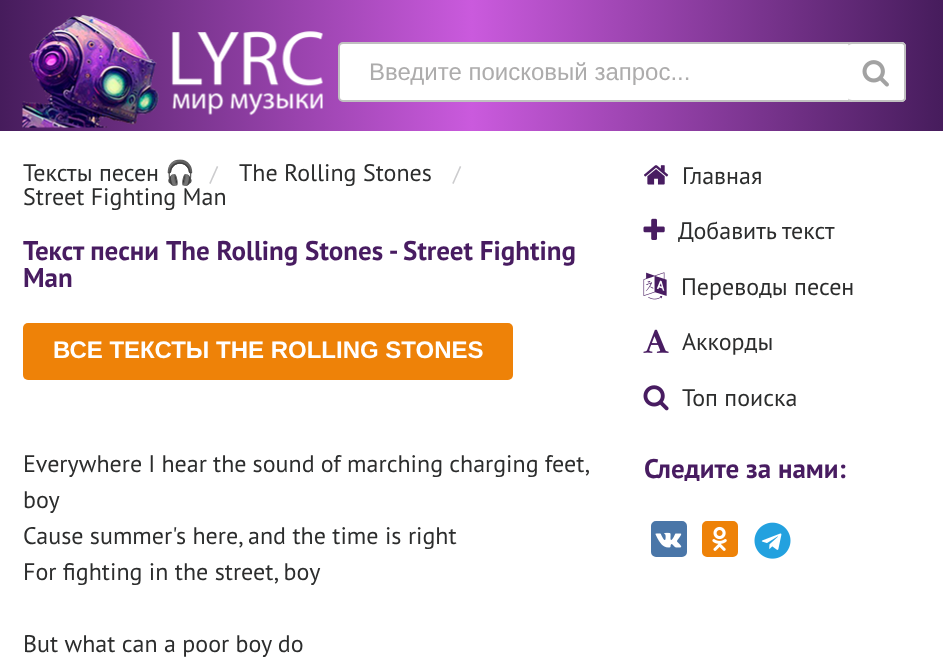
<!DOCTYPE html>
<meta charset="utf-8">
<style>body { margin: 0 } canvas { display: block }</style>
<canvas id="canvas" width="943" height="671"></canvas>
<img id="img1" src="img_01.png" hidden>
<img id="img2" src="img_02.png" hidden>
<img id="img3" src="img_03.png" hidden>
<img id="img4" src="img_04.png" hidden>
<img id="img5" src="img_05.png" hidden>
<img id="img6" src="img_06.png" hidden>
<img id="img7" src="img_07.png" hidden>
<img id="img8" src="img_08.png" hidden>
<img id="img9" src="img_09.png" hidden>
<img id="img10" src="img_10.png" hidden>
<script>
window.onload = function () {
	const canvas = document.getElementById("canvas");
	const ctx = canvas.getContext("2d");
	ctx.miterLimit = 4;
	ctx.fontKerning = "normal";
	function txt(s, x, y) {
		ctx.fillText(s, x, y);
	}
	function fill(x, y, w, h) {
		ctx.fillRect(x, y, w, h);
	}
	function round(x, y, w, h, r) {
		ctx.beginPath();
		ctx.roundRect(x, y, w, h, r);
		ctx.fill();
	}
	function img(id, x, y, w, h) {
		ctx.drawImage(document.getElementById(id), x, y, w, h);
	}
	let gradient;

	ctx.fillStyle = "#FFFFFF";
	fill(0, 0, 943, 671);
	gradient = ctx.createLinearGradient(0, 65, 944, 65);
	gradient.addColorStop(0, "#461C5C");
	gradient.addColorStop(0.5, "#CA5ADD");
	gradient.addColorStop(1, "#461C5C");
	ctx.fillStyle = gradient;
	fill(0, 0, 943, 131);
	img("img1", 22, 15, 301, 113);
	ctx.fillStyle = "#FFFFFF";
	ctx.beginPath();
	ctx.roundRect(339, 43, 566, 58, 4);
	ctx.fill();
	ctx.strokeStyle = "#C0C0C0";
	ctx.lineWidth = 2;
	ctx.stroke();
	round(848, 42, 58, 60, 5);
	ctx.fillStyle = "#C0C0C0";
	ctx.beginPath();
	ctx.moveTo(852, 42);
	ctx.lineTo(902, 42);
	ctx.bezierCurveTo(904, 42, 906, 44, 906, 46);
	ctx.lineTo(906, 98);
	ctx.bezierCurveTo(906, 100, 904, 102, 902, 102);
	ctx.lineTo(852, 102);
	ctx.bezierCurveTo(850, 102, 848, 100, 848, 98);
	ctx.lineTo(848, 46);
	ctx.bezierCurveTo(848, 44, 850, 42, 852, 42);
	ctx.closePath();
	ctx.moveTo(852, 44);
	ctx.lineTo(902, 44);
	ctx.bezierCurveTo(903, 44, 904, 45, 904, 46);
	ctx.lineTo(904, 98);
	ctx.bezierCurveTo(904, 99, 903, 100, 902, 100);
	ctx.lineTo(852, 100);
	ctx.bezierCurveTo(850, 100, 848, 99, 848, 98);
	ctx.lineTo(848, 46);
	ctx.bezierCurveTo(848, 45, 850, 44, 852, 44);
	ctx.closePath();
	ctx.fill("evenodd");
	img("img2", 862, 60, 27, 27);
	ctx.fillStyle = "#EE8208";
	round(23, 323, 490, 57, 5);
	img("img3", 644, 165, 25, 20);
	img("img4", 643, 218, 22, 22);
	img("img5", 643, 272, 24, 28);
	img("img6", 643, 329, 26, 24);
	img("img7", 643, 385, 26, 26);
	ctx.fillStyle = "#4A76A8";
	ctx.beginPath();
	ctx.roundRect(652, 522, 34, 34, 4);
	ctx.fill();
	ctx.strokeStyle = "#4A76A8";
	ctx.stroke();
	img("img8", 655, 532, 27, 16);
	ctx.fillStyle = "#EE8208";
	ctx.beginPath();
	ctx.roundRect(703, 522, 34, 34, 4);
	ctx.fill();
	ctx.strokeStyle = "#EE8208";
	ctx.stroke();
	img("img9", 712, 526, 15, 25);
	img("img10", 754, 522, 37, 37);
	ctx.font = "24px Liberation Sans";
	ctx.fillStyle = "#ADACAC";
	txt("Введите поисковый запрос...", 369, 80);
	ctx.font = "24px PT Sans";
	ctx.fillStyle = "#2C2D2D";
	txt("Тексты песен", 23, 181);
	ctx.font = "24px Noto Color Emoji";
	txt("🎧", 165, 181);
	ctx.font = "21px PT Sans";
	ctx.fillStyle = "#CCCCCE";
	txt("/", 210, 181);
	ctx.font = "24px PT Sans";
	ctx.fillStyle = "#2C2D2D";
	txt("The Rolling Stones", 239, 181);
	ctx.font = "21px PT Sans";
	ctx.fillStyle = "#CCCCCE";
	txt("/", 453, 181);
	ctx.font = "24px PT Sans";
	ctx.fillStyle = "#2C2D2D";
	txt("Street Fighting Man", 23, 205);
	ctx.font = "bold 27px PT Sans";
	ctx.fillStyle = "#481C61";
	txt("Текст песни The Rolling Stones - Street Fighting", 23, 260);
	txt("Man", 23, 287);
	ctx.font = "bold 24px Liberation Sans";
	ctx.fillStyle = "#FFFFFF";
	txt("ВСЕ ТЕКСТЫ THE ROLLING STONES", 53, 358);
	ctx.wordSpacing = "-0.25px";
	ctx.font = "24px PT Sans";
	ctx.fillStyle = "#2C2D2D";
	txt("Everywhere I hear the sound of marching charging feet,", 23, 472);
	ctx.wordSpacing = "0px";
	txt("boy", 23, 508);
	txt("Cause summer's here, and the time is right", 23, 544);
	txt("For fighting in the street, boy", 23, 580);
	txt("But what can a poor boy do", 23, 652);
	txt("Главная", 682, 184);
	txt("Добавить текст", 678, 239);
	txt("Переводы песен", 681, 295);
	txt("Аккорды", 682, 350);
	txt("Топ поиска", 682, 406);
	ctx.font = "bold 27px PT Sans";
	ctx.fillStyle = "#481C61";
	txt("Следите за нами:", 644, 478);
};
</script>
